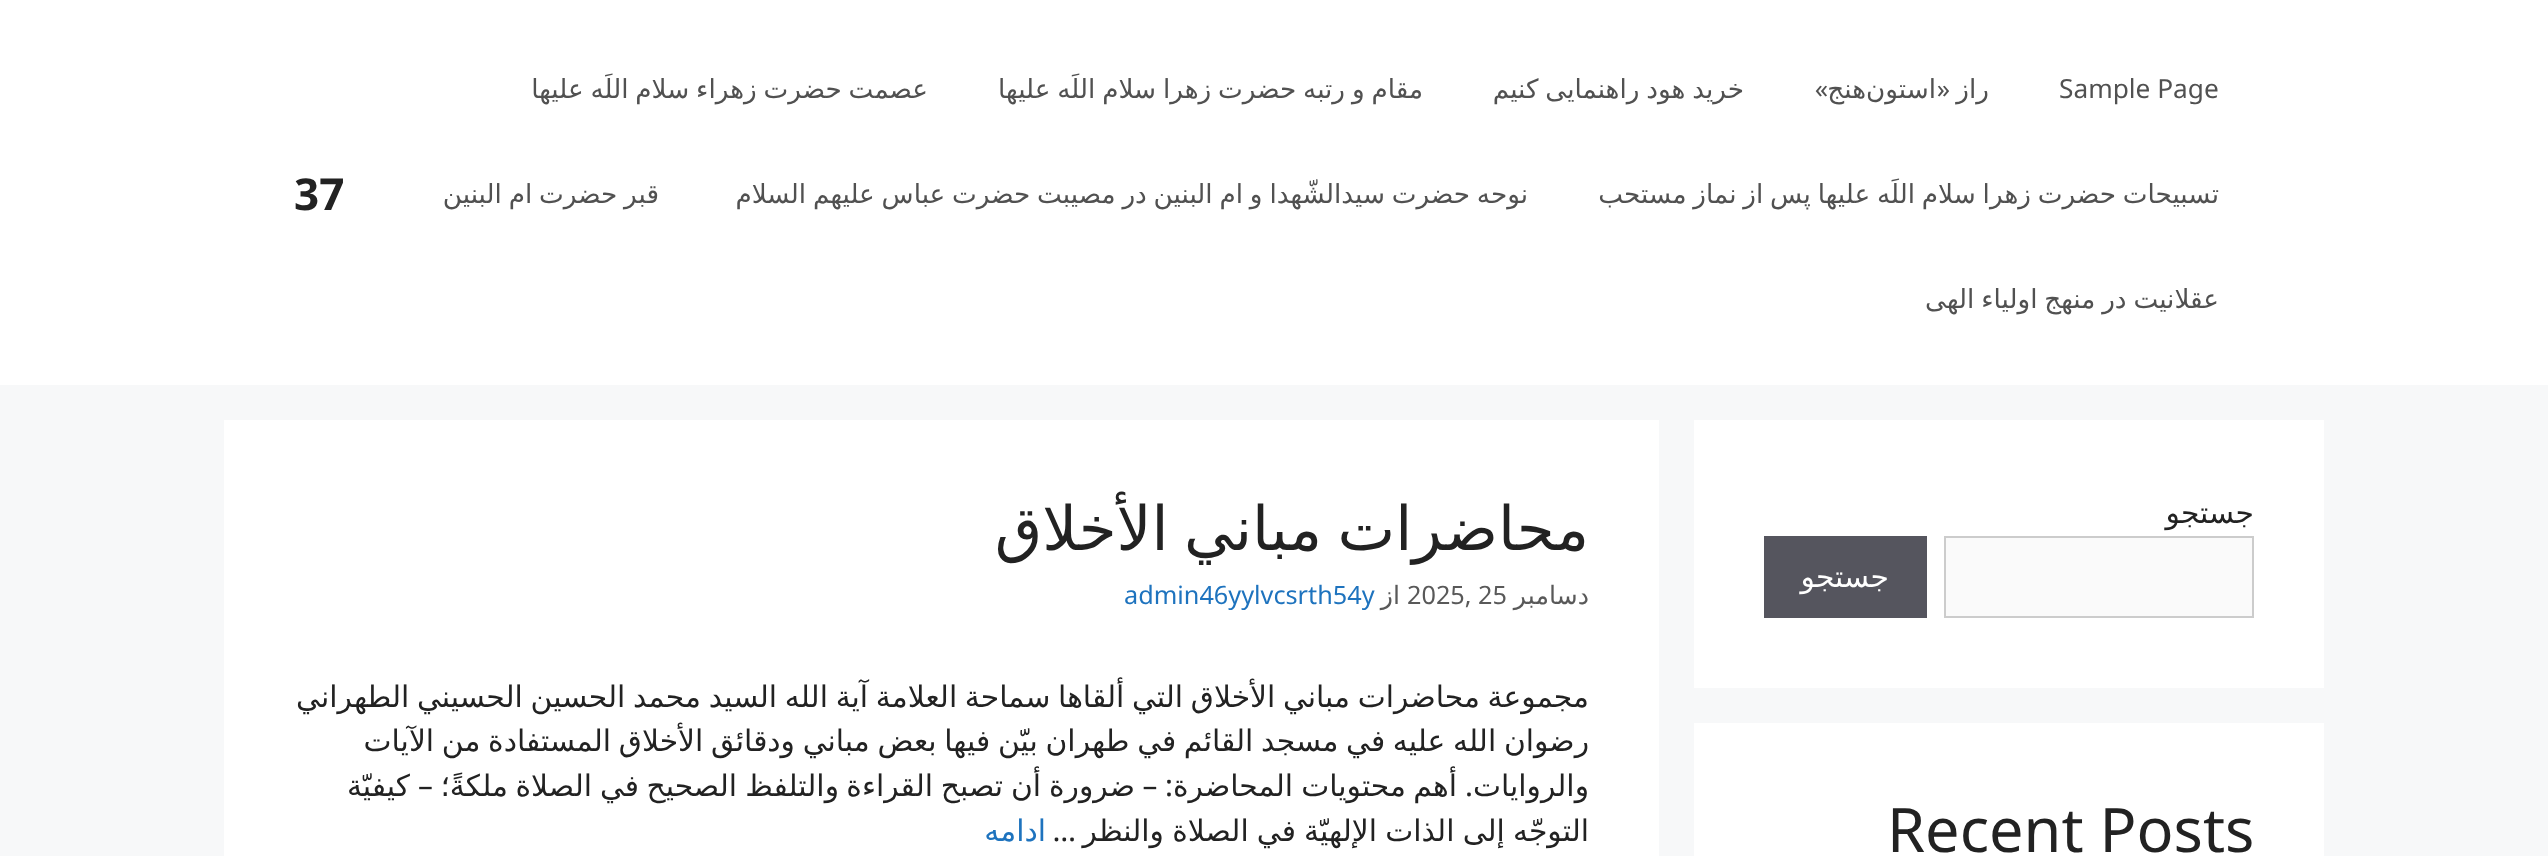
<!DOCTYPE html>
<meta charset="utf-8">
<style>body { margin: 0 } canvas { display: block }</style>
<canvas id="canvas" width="2548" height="856"></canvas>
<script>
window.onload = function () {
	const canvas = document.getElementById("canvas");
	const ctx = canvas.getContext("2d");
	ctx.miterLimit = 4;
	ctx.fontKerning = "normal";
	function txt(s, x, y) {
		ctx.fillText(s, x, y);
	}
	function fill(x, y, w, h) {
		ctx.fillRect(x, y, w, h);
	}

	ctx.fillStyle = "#F7F8F9";
	fill(0, 0, 2548, 856);
	ctx.fillStyle = "#FFFFFF";
	fill(0, 0, 2548, 385);
	fill(1694, 420, 630, 268);
	ctx.fillStyle = "#FAFAFA";
	ctx.beginPath();
	ctx.rect(1945, 537, 308, 80);
	ctx.fill();
	ctx.strokeStyle = "#CCCCCC";
	ctx.lineWidth = 2;
	ctx.stroke();
	ctx.fillStyle = "#55555E";
	fill(1764, 536, 163, 82);
	ctx.fillStyle = "#FFFFFF";
	fill(1694, 723, 630, 133);
	fill(224, 420, 1435, 436);
	ctx.font = "26.25px Noto Sans";
	ctx.fillStyle = "#515151";
	txt("Sample Page", 2059, 98);
	ctx.direction = "rtl";
	ctx.font = "26.25px DejaVu Sans";
	txt("راز", 1989, 98);
	ctx.font = "26.25px Noto Sans";
	txt("«", 1950, 98);
	ctx.font = "26.25px DejaVu Sans";
	txt("استون", 1936, 98);
	txt("هنج", 1866, 98);
	ctx.font = "26.25px Noto Sans";
	txt("»", 1828, 98);
	ctx.wordSpacing = "-1.5px";
	ctx.font = "26.25px DejaVu Sans";
	txt("خرید هود راهنمایی کنیم", 1744, 98);
	txt("مقام و رتبه حضرت زهرا سلام اللَه علیها", 1423, 98);
	txt("عصمت حضرت زهراء سلام اللَه علیها", 928, 98);
	txt("تسبیحات حضرت زهرا سلام اللَه علیها پس از نماز مستحب", 2219, 203);
	txt("نوحه حضرت سیدالشّهدا و ام البنین در مصیبت حضرت عباس علیهم السلام", 1528, 203);
	txt("قبر حضرت ام البنین", 659, 203);
	txt("عقلانیت در منهج اولیاء الهی", 2219, 308);
	ctx.wordSpacing = "0px";
	ctx.direction = "ltr";
	ctx.font = "bold 44px Noto Sans";
	ctx.fillStyle = "#222222";
	txt("37", 294, 210);
	ctx.direction = "rtl";
	ctx.font = "29.75px DejaVu Sans";
	txt("جستجو", 2254, 523);
	ctx.fillStyle = "#FFFFFF";
	txt("جستجو", 1889, 587);
	ctx.direction = "ltr";
	ctx.font = "61.25px Noto Sans";
	ctx.fillStyle = "#222222";
	txt("Recent Posts", 1887, 852);
	ctx.wordSpacing = "-4px";
	ctx.direction = "rtl";
	ctx.font = "61.25px DejaVu Sans";
	txt("محاضرات مباني الأخلاق", 1589, 550);
	ctx.wordSpacing = "0px";
	ctx.font = "25.25px DejaVu Sans";
	ctx.fillStyle = "#595959";
	txt("دسامبر", 1589, 604);
	ctx.direction = "ltr";
	ctx.font = "25.25px Noto Sans";
	txt("2025, 25", 1407, 604);
	ctx.direction = "rtl";
	ctx.font = "25.25px DejaVu Sans";
	txt("از", 1400, 604);
	ctx.direction = "ltr";
	ctx.font = "25.25px Noto Sans";
	ctx.fillStyle = "#1E73BE";
	txt("admin46yylvcsrth54y", 1124, 604);
	ctx.wordSpacing = "-1.75px";
	ctx.direction = "rtl";
	ctx.font = "29.75px DejaVu Sans";
	ctx.fillStyle = "#222222";
	txt("مجموعة محاضرات مباني الأخلاق التي ألقاها سماحة العلامة آية الله السيد محمد الحسين الحسيني الطهراني", 1589, 707);
	txt("رضوان الله عليه في مسجد القائم في طهران بيّن فيها بعض مباني ودقائق الأخلاق المستفادة من الآيات", 1589, 751);
	ctx.wordSpacing = "0px";
	txt("والروايات", 1589, 796);
	txt("أهم", 1457, 796);
	txt("محتويات", 1406, 796);
	txt("المحاضرة", 1293, 796);
	ctx.font = "29.75px Noto Sans";
	txt(": –", 1173, 796);
	ctx.font = "29.75px DejaVu Sans";
	txt("ضرورة", 1135, 796);
	txt("أن", 1041, 796);
	txt("تصبح", 1003, 796);
	txt("القراءة", 933, 796);
	txt("والتلفظ", 839, 796);
	txt("الصحيح", 737, 796);
	txt("في", 639, 796);
	txt("الصلاة", 592, 796);
	txt("ملكةً؛", 508, 796);
	ctx.font = "29.75px Noto Sans";
	txt("–", 433, 796);
	ctx.font = "29.75px DejaVu Sans";
	txt("كيفيّة", 410, 796);
	ctx.font = "29.75px Noto Sans";
	txt(".", 1473, 796);
	ctx.wordSpacing = "-1.25px";
	ctx.font = "29.75px DejaVu Sans";
	txt("التوجّه إلى الذات الإلهيّة في الصلاة والنظر", 1589, 841);
	ctx.wordSpacing = "0px";
	ctx.font = "29.75px Noto Sans";
	txt("…", 1076, 841);
	ctx.font = "29.75px DejaVu Sans";
	ctx.fillStyle = "#1E73BE";
	txt("ادامه", 1046, 841);
};
</script>
